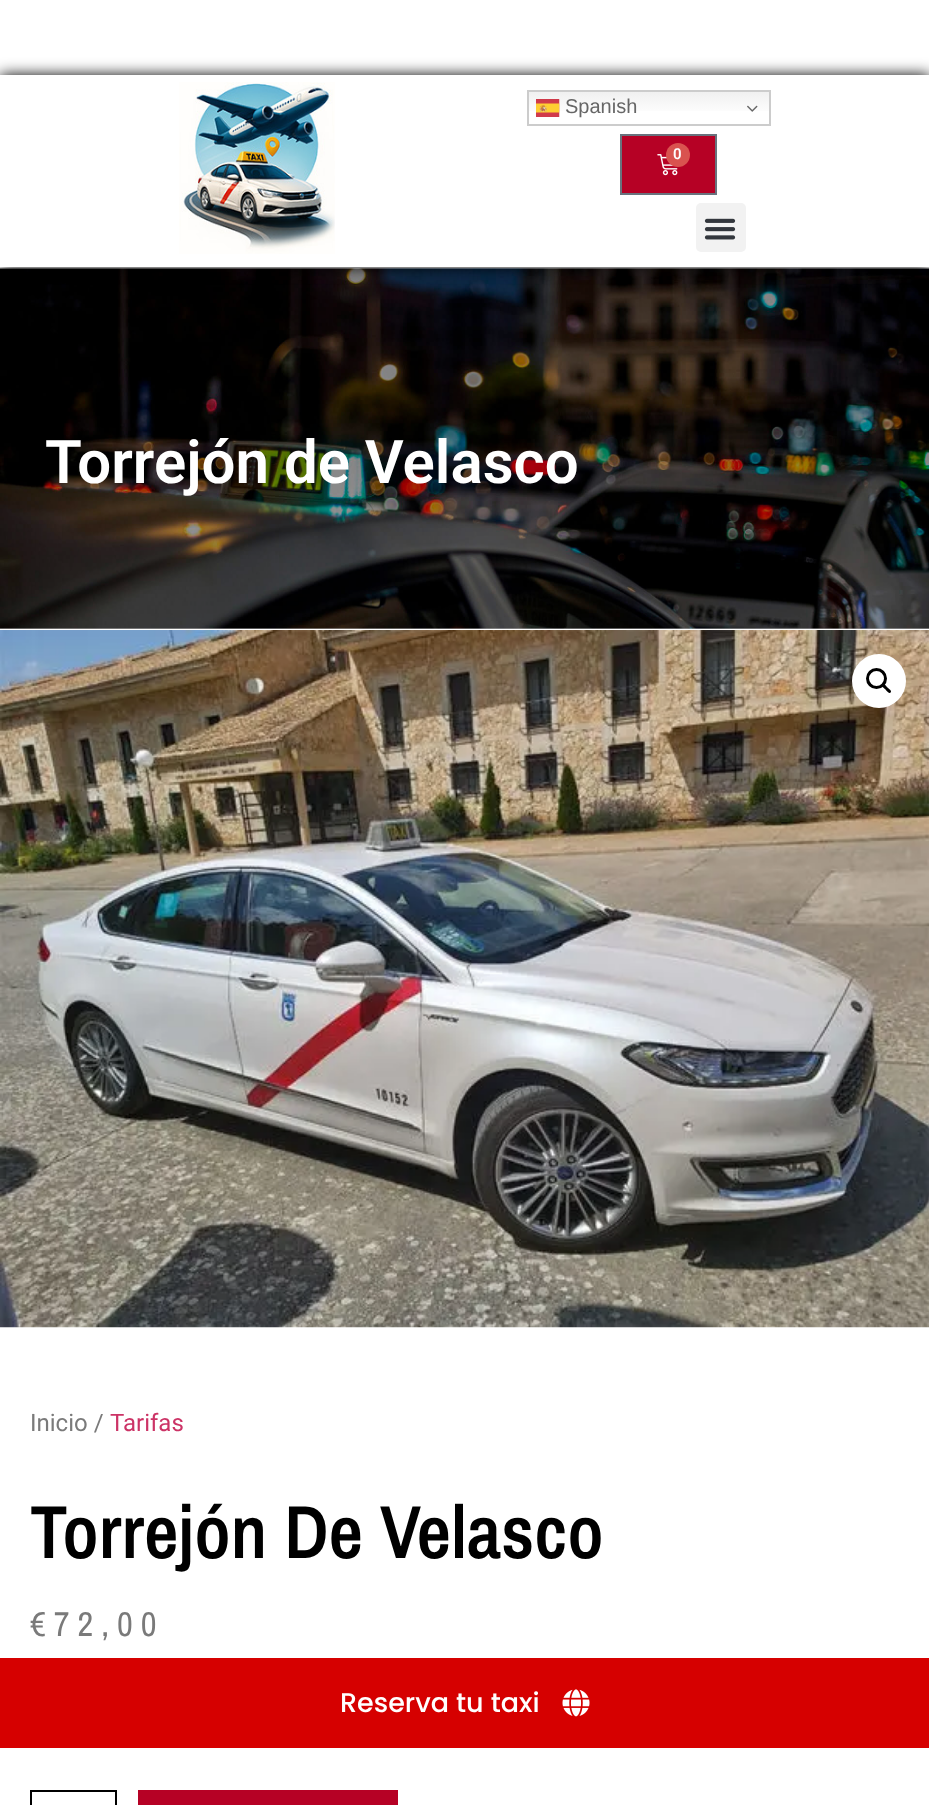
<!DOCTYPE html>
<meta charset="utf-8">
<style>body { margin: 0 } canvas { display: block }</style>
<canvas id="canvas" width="929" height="1805"></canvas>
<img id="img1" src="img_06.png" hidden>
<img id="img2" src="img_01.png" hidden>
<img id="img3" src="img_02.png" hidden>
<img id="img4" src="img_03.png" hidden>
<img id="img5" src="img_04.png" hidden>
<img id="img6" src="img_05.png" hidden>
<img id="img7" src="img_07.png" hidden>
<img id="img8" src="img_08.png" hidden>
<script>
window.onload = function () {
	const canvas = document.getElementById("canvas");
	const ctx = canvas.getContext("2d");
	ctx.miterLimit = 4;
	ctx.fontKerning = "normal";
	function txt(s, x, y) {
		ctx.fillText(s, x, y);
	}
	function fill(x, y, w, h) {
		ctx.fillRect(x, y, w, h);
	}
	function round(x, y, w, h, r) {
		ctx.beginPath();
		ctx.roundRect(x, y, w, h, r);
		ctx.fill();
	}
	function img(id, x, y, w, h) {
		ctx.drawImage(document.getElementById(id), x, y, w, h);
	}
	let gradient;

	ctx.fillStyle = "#FFFFFF";
	fill(0, 0, 929, 1805);
	ctx.fillStyle = "#B3B3B3";
	fill(0, 628, 929, 1);
	img("img1", 0, 268, 929, 361);
	ctx.save();
	ctx.beginPath();
	ctx.moveTo(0, 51);
	ctx.lineTo(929, 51);
	ctx.lineTo(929, 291);
	ctx.lineTo(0, 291);
	ctx.closePath();
	ctx.moveTo(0, 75);
	ctx.lineTo(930, 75);
	ctx.lineTo(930, 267);
	ctx.lineTo(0, 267);
	ctx.closePath();
	ctx.clip("evenodd");
	ctx.fillStyle = "#000000";
	ctx.filter = "blur(7.5px)";
	ctx.beginPath();
	ctx.rect(0, 75, 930, 192);
	ctx.fill();
	ctx.filter = "none";
	ctx.restore();
	img("img2", 179, 82, 156, 172);
	gradient = ctx.createLinearGradient(649, 90, 649, 126);
	gradient.addColorStop(0, "#EFEFEF");
	gradient.addColorStop(0.7, "#FFFFFF");
	ctx.fillStyle = gradient;
	fill(529, 92, 240, 19);
	ctx.strokeStyle = "#CCCCCC";
	ctx.lineWidth = 2;
	ctx.strokeRect(528, 91, 242, 34);
	img("img3", 536, 99, 24, 18);
	img("img4", 747, 105, 11, 7);
	ctx.fillStyle = "#B60125";
	ctx.beginPath();
	ctx.rect(621, 135, 95, 59);
	ctx.fill();
	ctx.strokeStyle = "#69727D";
	ctx.stroke();
	img("img5", 657, 154, 21, 22);
	ctx.fillStyle = "#D9534F";
	ctx.beginPath();
	ctx.arc(678, 155, 12, 0, Math.PI * 2);
	ctx.fill();
	ctx.fillStyle = "#F2F2F2";
	round(696, 203, 50, 49, 5);
	img("img6", 704, 218, 32, 22);
	img("img7", 0, 630, 929, 698);
	ctx.fillStyle = "#FFFFFF";
	ctx.beginPath();
	ctx.arc(879, 681, 27, 0, Math.PI * 2);
	ctx.fill();
	ctx.beginPath();
	ctx.arc(876.5, 678.5, 9, 0, Math.PI * 2);
	ctx.strokeStyle = "#000000";
	ctx.lineWidth = 3;
	ctx.stroke();
	ctx.fillStyle = "#000000";
	ctx.beginPath();
	ctx.moveTo(882.5, 684.5);
	ctx.bezierCurveTo(884, 682.5, 886.5, 686.5, 887.5, 687.5);
	ctx.bezierCurveTo(888.5, 688.5, 892.5, 691, 890.5, 692.5);
	ctx.bezierCurveTo(889, 694.5, 886.5, 690.5, 885.5, 689.5);
	ctx.bezierCurveTo(884.5, 688.5, 880.5, 686, 882.5, 684.5);
	ctx.closePath();
	ctx.fill();
	ctx.lineWidth = 2;
	ctx.strokeRect(31, 1791, 85, 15);
	ctx.fillStyle = "#B60125";
	fill(138, 1790, 260, 15);
	ctx.fillStyle = "#D60000";
	fill(0, 1658, 929, 90);
	img("img8", 562, 1689, 28, 28);
	ctx.font = "20px Liberation Sans";
	ctx.fillStyle = "#666666";
	txt("Spanish", 565, 113);
	ctx.font = "600 15px Roboto";
	ctx.fillStyle = "#FFFFFF";
	txt("0", 673, 159);
	ctx.font = "600 60px Roboto";
	txt("Torrejón de Velasco", 45, 483);
	ctx.font = "24px Roboto";
	ctx.fillStyle = "#7A7A7A";
	txt("Inicio /", 30, 1431);
	ctx.fillStyle = "#CC3366";
	txt("Tarifas", 110, 1431);
	ctx.font = "600 75px Archivo Narrow";
	ctx.fillStyle = "#000000";
	txt("Torrejón De Velasco", 30, 1558);
	ctx.letterSpacing = "8px";
	ctx.font = "34.5px Archivo Narrow";
	ctx.fillStyle = "#7A7A7A";
	txt("€72,00", 30, 1636);
	ctx.letterSpacing = "0px";
	ctx.font = "500 27px Poppins";
	ctx.fillStyle = "#FFFFFF";
	txt("Reserva tu taxi", 340, 1712);
};
</script>
